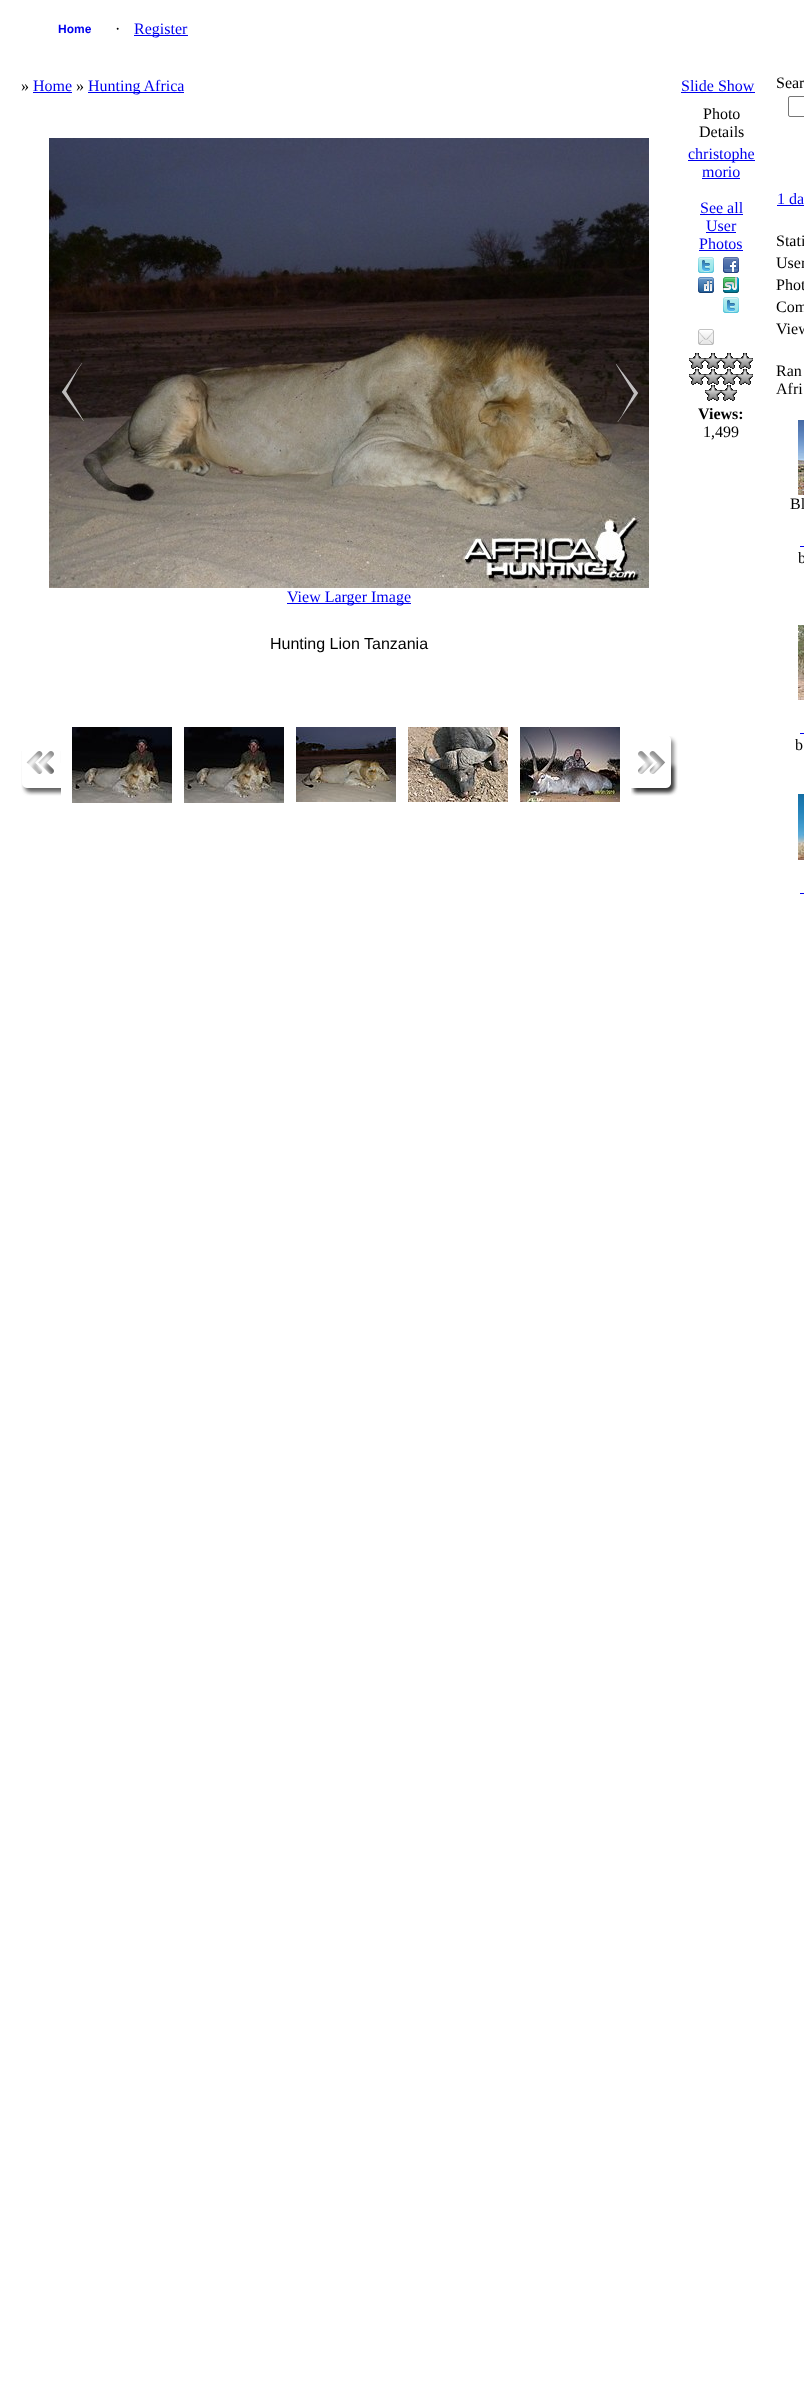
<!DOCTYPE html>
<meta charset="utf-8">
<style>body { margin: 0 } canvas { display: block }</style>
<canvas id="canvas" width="804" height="2394"></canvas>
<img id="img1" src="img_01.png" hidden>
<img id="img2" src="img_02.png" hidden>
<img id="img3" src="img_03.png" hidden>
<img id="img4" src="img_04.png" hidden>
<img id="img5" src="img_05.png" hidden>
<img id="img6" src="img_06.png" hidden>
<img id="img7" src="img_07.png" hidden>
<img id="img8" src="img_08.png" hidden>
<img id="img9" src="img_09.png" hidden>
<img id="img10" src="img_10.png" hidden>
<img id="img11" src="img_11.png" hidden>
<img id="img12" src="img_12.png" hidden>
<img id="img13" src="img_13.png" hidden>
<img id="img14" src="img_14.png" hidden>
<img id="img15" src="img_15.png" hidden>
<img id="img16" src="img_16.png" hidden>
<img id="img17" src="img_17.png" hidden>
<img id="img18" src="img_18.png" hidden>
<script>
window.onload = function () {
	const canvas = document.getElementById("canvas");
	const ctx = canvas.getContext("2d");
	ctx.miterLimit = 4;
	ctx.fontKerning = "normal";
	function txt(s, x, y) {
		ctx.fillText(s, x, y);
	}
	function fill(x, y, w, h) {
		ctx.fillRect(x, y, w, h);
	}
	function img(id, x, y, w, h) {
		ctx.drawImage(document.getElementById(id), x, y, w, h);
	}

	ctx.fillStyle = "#FFFFFF";
	fill(0, 0, 804, 2394);
	ctx.fillStyle = "#0000EE";
	fill(134, 35, 54, 1);
	fill(33, 92, 39, 1);
	fill(88, 92, 96, 1);
	fill(681, 92, 74, 1);
	fill(688, 160, 67, 1);
	fill(702, 178, 38, 1);
	fill(700, 214, 43, 1);
	fill(706, 232, 30, 1);
	fill(699, 250, 44, 1);
	img("img1", 698, 257, 16, 16);
	img("img2", 723, 257, 16, 16);
	img("img3", 698, 277, 16, 16);
	img("img4", 723, 277, 16, 16);
	img("img1", 723, 297, 16, 16);
	img("img5", 698, 329, 16, 16);
	img("img6", 689, 353, 16, 16);
	img("img6", 705, 353, 16, 16);
	img("img6", 721, 353, 16, 16);
	img("img6", 737, 353, 16, 16);
	img("img6", 689, 369, 16, 16);
	img("img6", 705, 369, 16, 16);
	img("img6", 721, 369, 16, 16);
	img("img6", 737, 369, 16, 16);
	img("img6", 705, 385, 16, 16);
	img("img6", 721, 385, 16, 16);
	img("img7", 49, 138, 600, 450);
	img("img8", 62, 363, 22, 58);
	img("img9", 616, 364, 22, 58);
	fill(287, 603, 124, 1);
	img("img10", 21, 751, 40, 45);
	img("img11", 72, 727, 100, 76);
	img("img11", 184, 727, 100, 76);
	img("img12", 296, 727, 100, 75);
	img("img13", 408, 727, 100, 75);
	img("img14", 520, 727, 100, 75);
	img("img15", 631, 736, 47, 60);
	ctx.beginPath();
	ctx.roundRect(788.5, 96.5, 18, 20, 1.5);
	ctx.strokeStyle = "#767676";
	ctx.stroke();
	fill(777, 205, 27, 1);
	img("img16", 798, 420, 6, 75);
	fill(800, 546, 4, 1);
	img("img17", 798, 625, 6, 75);
	fill(800, 733, 4, 1);
	img("img18", 798, 794, 6, 66);
	fill(800, 893, 4, 1);
	ctx.font = "bold 12px Liberation Sans";
	txt("Home", 58, 33);
	ctx.font = "16px Liberation Serif";
	ctx.fillStyle = "#000000";
	txt("·", 115, 34);
	ctx.fillStyle = "#0000EE";
	txt("Register", 134, 34);
	ctx.fillStyle = "#000000";
	txt("»", 21, 91);
	ctx.fillStyle = "#0000EE";
	txt("Home", 33, 91);
	ctx.fillStyle = "#000000";
	txt("»", 76, 91);
	ctx.fillStyle = "#0000EE";
	txt("Hunting Africa", 88, 91);
	txt("Slide Show", 681, 91);
	ctx.fillStyle = "#000000";
	txt("Photo", 703, 119);
	txt("Details", 699, 137);
	ctx.fillStyle = "#0000EE";
	txt("christophe", 688, 159);
	txt("morio", 702, 177);
	txt("See all", 700, 213);
	txt("User", 706, 231);
	txt("Photos", 699, 249);
	ctx.font = "bold 16px Liberation Serif";
	ctx.fillStyle = "#000000";
	txt("Views:", 698, 419);
	ctx.font = "16px Liberation Serif";
	txt("1,499", 703, 437);
	ctx.fillStyle = "#0000EE";
	txt("View Larger Image", 287, 602);
	ctx.font = "16px Liberation Sans";
	ctx.fillStyle = "#000000";
	txt("Hunting Lion Tanzania", 270, 649);
	ctx.font = "16px Liberation Serif";
	txt("Sear", 776, 88);
	ctx.fillStyle = "#0000EE";
	txt("1 da", 777, 204);
	ctx.fillStyle = "#000000";
	txt("Stati", 776, 246);
	txt("User", 776, 268);
	txt("Phot", 776, 290);
	txt("Com", 776, 312);
	txt("View", 776, 334);
	txt("Ran", 776, 376);
	txt("Afri", 776, 394);
	txt("Bl", 790, 509);
	txt("b", 798, 563);
	txt("b", 795, 750);
};
</script>
